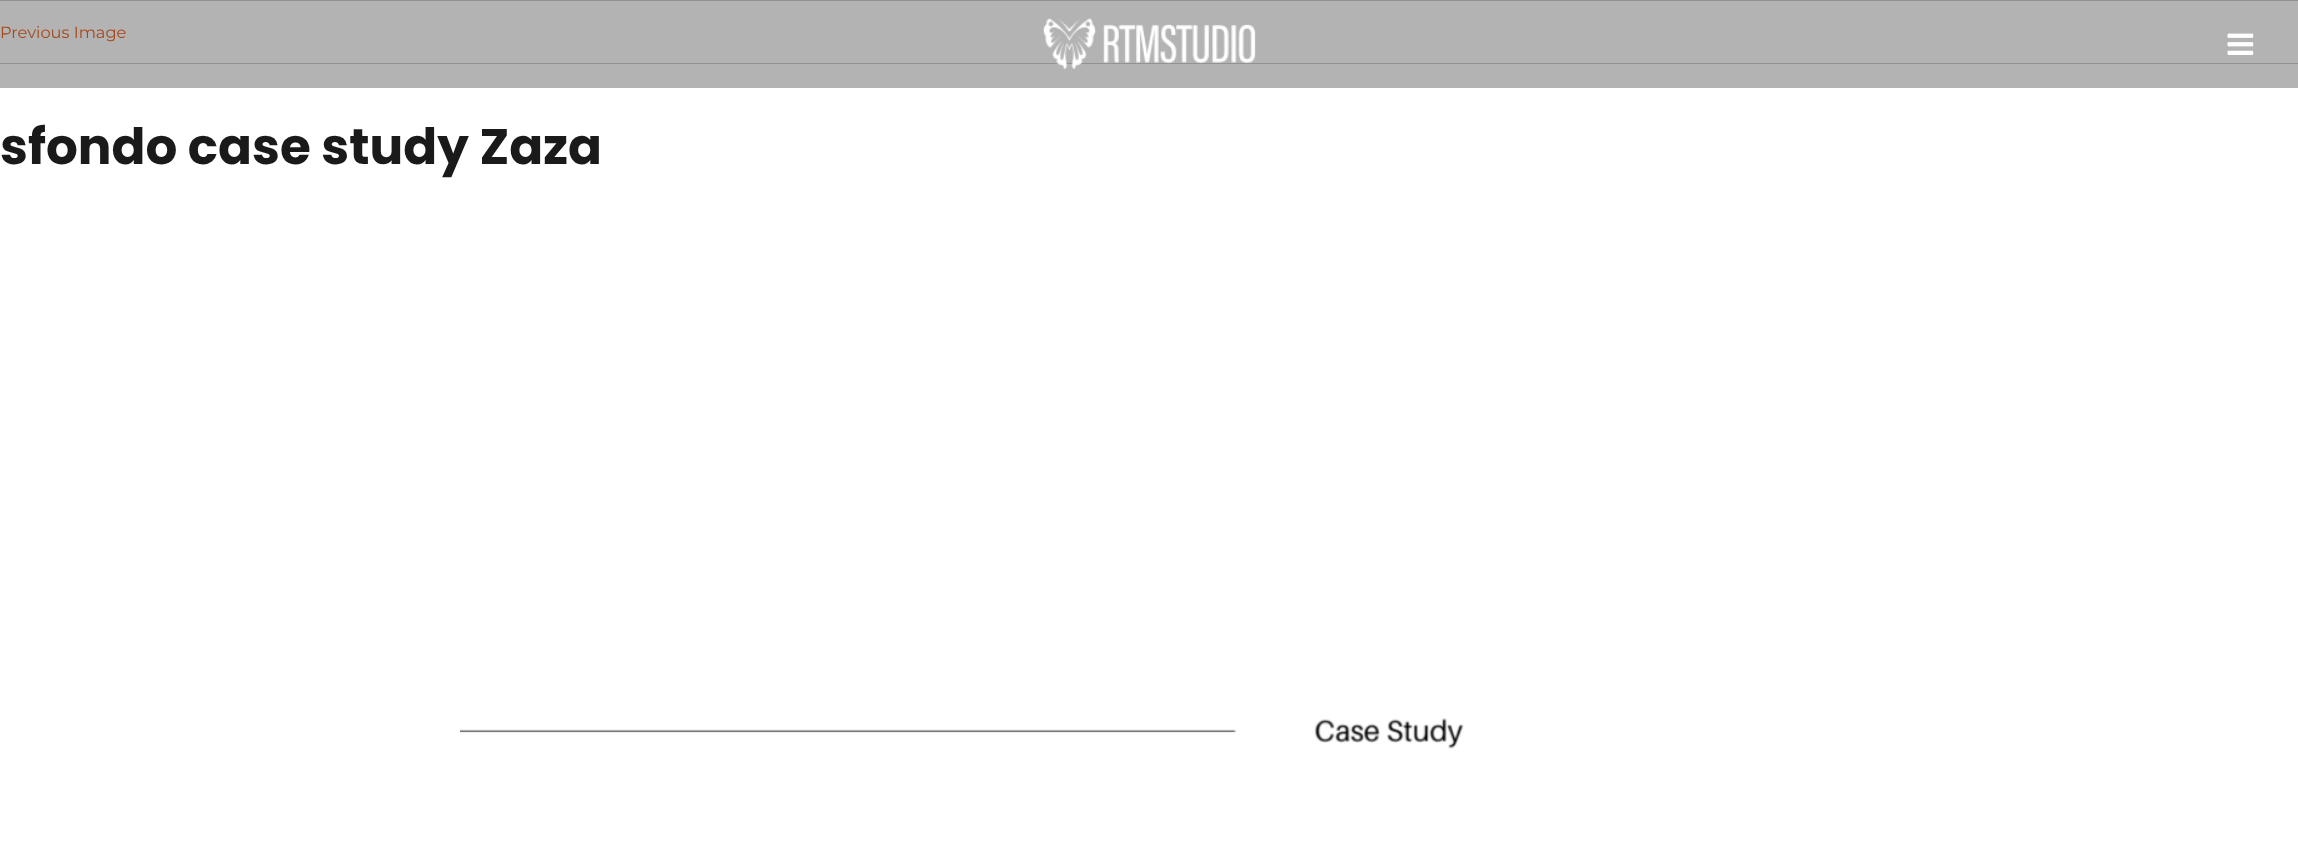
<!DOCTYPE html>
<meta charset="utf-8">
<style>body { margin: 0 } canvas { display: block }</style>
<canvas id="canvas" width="2298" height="841"></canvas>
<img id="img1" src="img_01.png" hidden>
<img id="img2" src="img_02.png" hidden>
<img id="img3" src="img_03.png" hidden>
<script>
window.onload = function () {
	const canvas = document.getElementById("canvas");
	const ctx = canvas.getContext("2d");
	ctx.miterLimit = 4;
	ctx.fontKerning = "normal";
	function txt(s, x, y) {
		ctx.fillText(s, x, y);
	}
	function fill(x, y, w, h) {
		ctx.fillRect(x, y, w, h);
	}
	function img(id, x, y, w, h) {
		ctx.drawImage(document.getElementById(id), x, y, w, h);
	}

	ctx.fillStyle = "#FFFFFF";
	fill(0, 0, 2298, 841);
	ctx.fillStyle = "#B3B3B3";
	fill(0, 1, 2298, 87);
	ctx.fillStyle = "#929292";
	fill(0, 0, 2298, 1);
	fill(0, 63, 2298, 1);
	img("img1", 460, 718, 1004, 31);
	img("img2", 1043, 18, 213, 51);
	img("img3", 2227, 33, 27, 22);
	ctx.font = "16.25px Montserrat";
	ctx.fillStyle = "#A5481B";
	txt("Previous Image", 0, 38);
	ctx.font = "bold 50px Poppins";
	ctx.fillStyle = "#1A1A1A";
	txt("sfondo case study Zaza", 0, 164);
};
</script>
